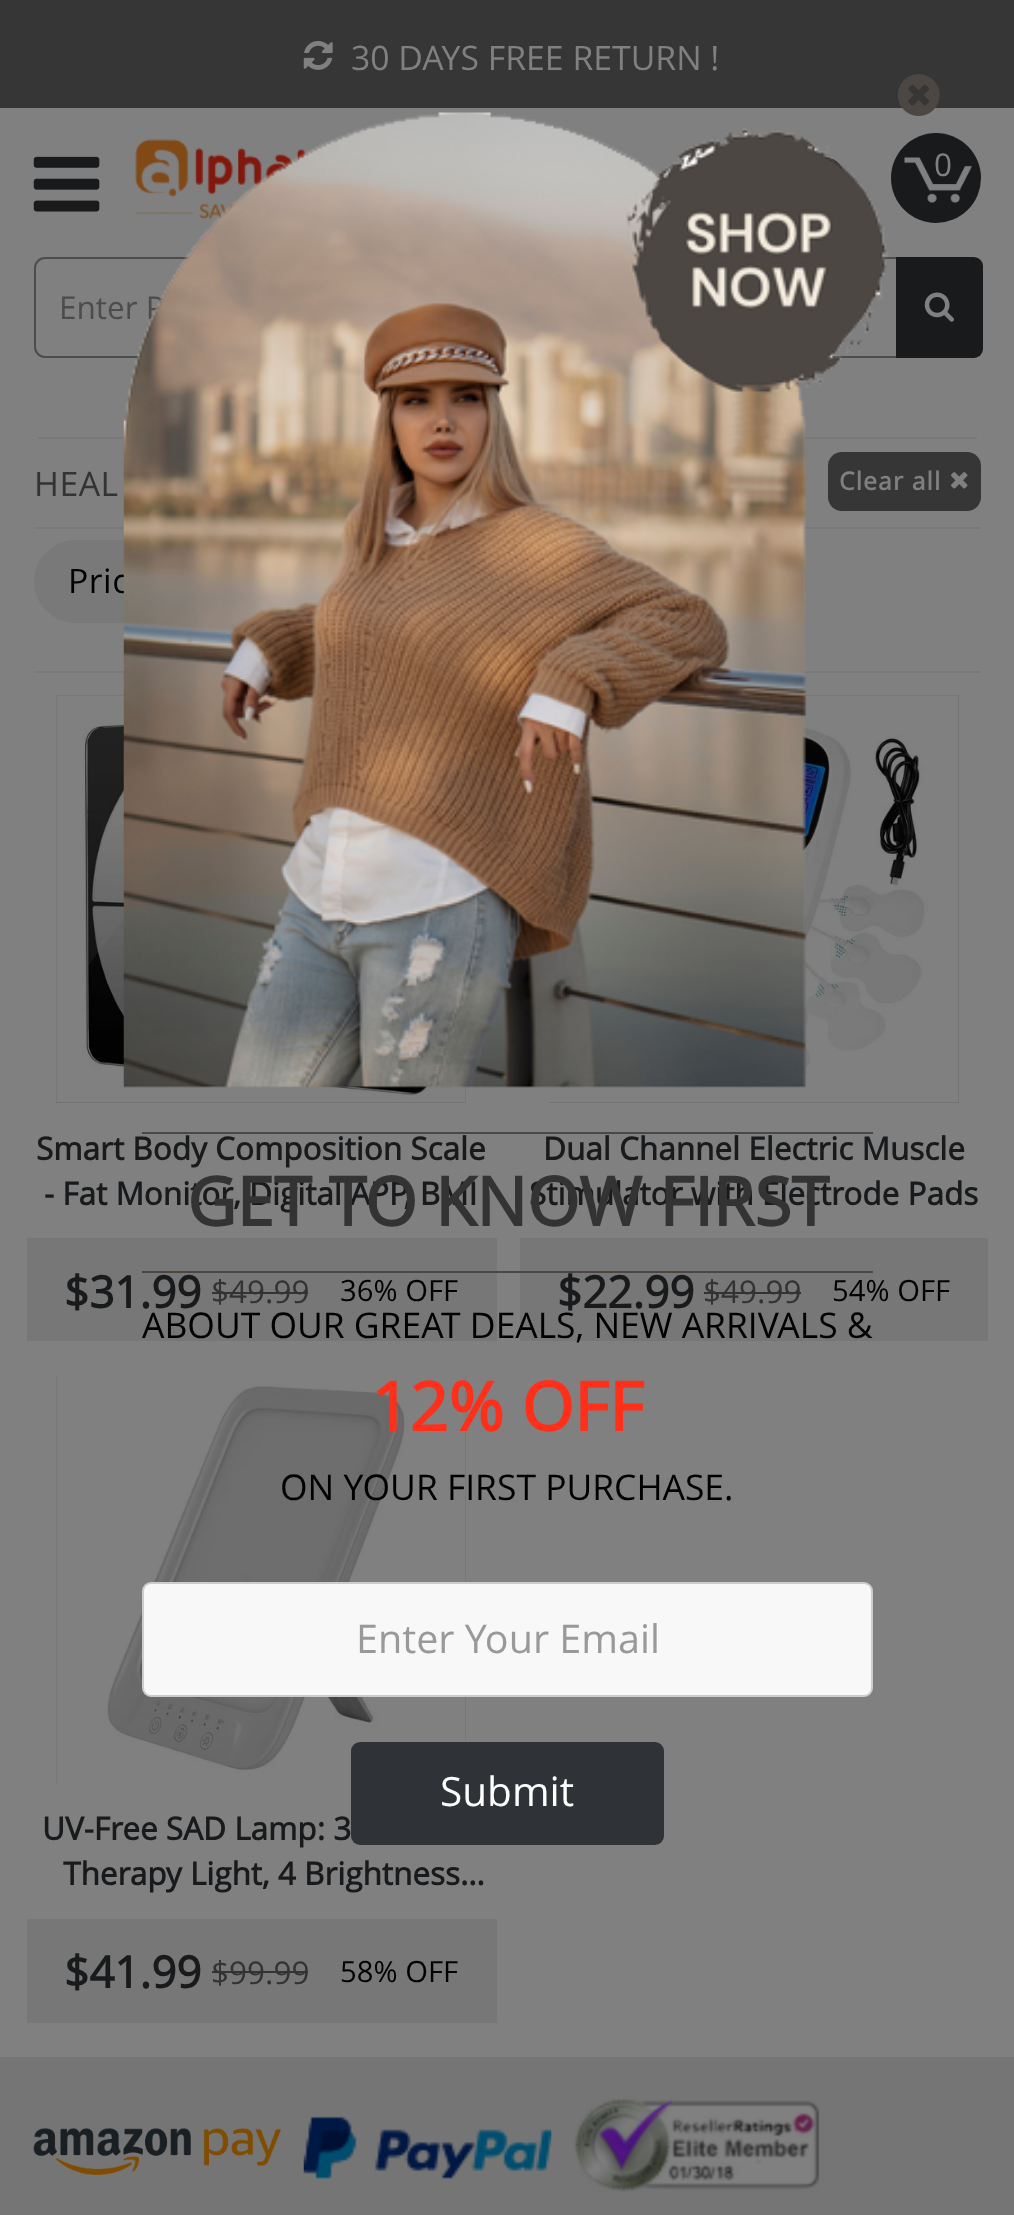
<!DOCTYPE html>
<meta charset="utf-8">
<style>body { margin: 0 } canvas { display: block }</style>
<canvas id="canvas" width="1014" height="2215"></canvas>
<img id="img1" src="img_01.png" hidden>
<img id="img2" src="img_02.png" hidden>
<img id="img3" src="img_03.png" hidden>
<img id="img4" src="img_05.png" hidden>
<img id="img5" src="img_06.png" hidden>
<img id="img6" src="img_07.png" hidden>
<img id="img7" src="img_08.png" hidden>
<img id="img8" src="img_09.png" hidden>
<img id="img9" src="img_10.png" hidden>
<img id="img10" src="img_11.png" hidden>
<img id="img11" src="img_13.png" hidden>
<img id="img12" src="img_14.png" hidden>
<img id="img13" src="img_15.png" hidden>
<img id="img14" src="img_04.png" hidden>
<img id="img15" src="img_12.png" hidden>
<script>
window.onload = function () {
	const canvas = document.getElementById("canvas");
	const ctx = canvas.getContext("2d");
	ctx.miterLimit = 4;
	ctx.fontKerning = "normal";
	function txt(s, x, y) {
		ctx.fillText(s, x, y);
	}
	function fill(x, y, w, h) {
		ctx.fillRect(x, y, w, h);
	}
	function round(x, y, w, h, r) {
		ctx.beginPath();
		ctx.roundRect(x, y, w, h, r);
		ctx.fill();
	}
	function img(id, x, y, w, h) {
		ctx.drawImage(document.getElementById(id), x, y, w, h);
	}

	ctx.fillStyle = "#808080";
	fill(0, 0, 1014, 2215);
	ctx.fillStyle = "#363636";
	fill(0, 0, 1014, 108);
	img("img1", 303, 41, 30, 29);
	img("img2", 135, 139, 174, 81);
	img("img3", 823, 157, 23, 17);
	ctx.fillStyle = "#181A1C";
	ctx.beginPath();
	ctx.arc(936, 178, 45, 0, Math.PI * 2);
	ctx.fill();
	ctx.beginPath();
	ctx.roundRect(35, 258, 945, 99, 10);
	ctx.strokeStyle = "#4C4C4C";
	ctx.lineWidth = 2;
	ctx.stroke();
	ctx.beginPath();
	ctx.roundRect(896, 257, 87, 101, [0, 9, 9, 0]);
	ctx.fill();
	img("img4", 924, 292, 30, 30);
	img("img5", 33, 156, 67, 56);
	ctx.fillStyle = "#797979";
	fill(34, 527, 947, 2);
	fill(38, 437, 939, 2);
	ctx.fillStyle = "#363636";
	round(828, 452, 153, 59, 14);
	img("img6", 951, 472, 17, 17);
	ctx.fillStyle = "#797979";
	fill(34, 671, 947, 2);
	round(34, 540, 202, 83, 41.5);
	ctx.fillStyle = "#6F6F6F";
	fill(56, 695, 410, 408);
	img("img7", 56, 695, 410, 408);
	ctx.fillStyle = "#777777";
	fill(27, 1238, 470, 103);
	ctx.fillStyle = "#333333";
	fill(212, 1292, 96, 2);
	ctx.fillStyle = "#6F6F6F";
	fill(549, 695, 410, 408);
	img("img8", 549, 695, 410, 408);
	ctx.fillStyle = "#777777";
	fill(520, 1238, 468, 103);
	ctx.fillStyle = "#333333";
	fill(704, 1292, 97, 2);
	ctx.fillStyle = "#6F6F6F";
	fill(56, 1375, 410, 409);
	img("img9", 56, 1375, 410, 409);
	ctx.fillStyle = "#777777";
	fill(27, 1919, 470, 104);
	ctx.fillStyle = "#333333";
	fill(212, 1971, 96, 2);
	img("img10", 897, 74, 43, 42);
	ctx.fillStyle = "#4C4743";
	fill(142, 1132, 731, 2);
	fill(142, 1271, 731, 2);
	ctx.fillStyle = "#F8F8F8";
	ctx.beginPath();
	ctx.roundRect(143, 1583, 729, 113, 8);
	ctx.fill();
	ctx.strokeStyle = "#CCCCCC";
	ctx.stroke();
	ctx.fillStyle = "#2F3337";
	round(351, 1742, 313, 103, 9);
	ctx.fillStyle = "#757575";
	fill(0, 2057, 1014, 158);
	img("img11", 33, 2128, 249, 47);
	img("img12", 303, 2116, 249, 63);
	img("img13", 574, 2099, 246, 93);
	ctx.font = "33.75px Open Sans";
	ctx.fillStyle = "#808080";
	txt("30 DAYS FREE RETURN !", 351, 70);
	ctx.font = "31.5px Open Sans";
	txt("0", 934, 176);
	img("img14", 904, 157, 68, 46);
	ctx.fillStyle = "#4C4C4C";
	txt("Enter P", 59, 319);
	ctx.letterSpacing = "0.5px";
	ctx.font = "33.75px Open Sans";
	ctx.fillStyle = "#333333";
	txt("HEAL", 34, 496);
	ctx.letterSpacing = "1.1px";
	ctx.font = "bold 24.75px Open Sans";
	ctx.fillStyle = "#808080";
	txt("Clear all", 839, 490);
	ctx.letterSpacing = "0.5px";
	ctx.font = "33.75px Open Sans";
	ctx.fillStyle = "#000000";
	txt("Pric", 68, 593);
	ctx.letterSpacing = "0px";
	ctx.font = "bold 31.5px Open Sans";
	ctx.fillStyle = "#181A1C";
	txt("Smart Body Composition Scale", 36, 1160);
	txt("- Fat Monitor, Digital APP, BMI", 44, 1205);
	ctx.font = "bold 44px Open Sans";
	txt("$31.99", 64, 1308);
	ctx.font = "31.5px Open Sans";
	ctx.fillStyle = "#333333";
	txt("$49.99", 211, 1303);
	ctx.font = "29.25px Open Sans";
	ctx.fillStyle = "#000000";
	txt("36% OFF", 340, 1301);
	ctx.font = "bold 31.5px Open Sans";
	ctx.fillStyle = "#181A1C";
	txt("Dual Channel Electric Muscle", 543, 1160);
	txt("Stimulator with Electrode Pads", 529, 1205);
	ctx.font = "bold 44px Open Sans";
	txt("$22.99", 557, 1308);
	ctx.font = "31.5px Open Sans";
	ctx.fillStyle = "#333333";
	txt("$49.99", 703, 1303);
	ctx.font = "29.25px Open Sans";
	ctx.fillStyle = "#000000";
	txt("54% OFF", 832, 1301);
	ctx.font = "bold 31.5px Open Sans";
	ctx.fillStyle = "#181A1C";
	txt("UV-Free SAD Lamp: 3", 42, 1840);
	txt("Therapy Light, 4 Brightness…", 63, 1885);
	ctx.font = "bold 44px Open Sans";
	txt("$41.99", 64, 1988);
	ctx.font = "31.5px Open Sans";
	ctx.fillStyle = "#333333";
	txt("$99.99", 211, 1984);
	ctx.font = "29.25px Open Sans";
	ctx.fillStyle = "#000000";
	txt("58% OFF", 340, 1982);
	img("img15", 123, 112, 766, 976);
	ctx.font = "bold 67.5px Open Sans";
	ctx.fillStyle = "#333333";
	txt("GET TO KNOW FIRST", 187, 1226);
	ctx.font = "35.4px Open Sans";
	ctx.fillStyle = "#000000";
	txt("ABOUT OUR GREAT DEALS, NEW ARRIVALS &", 142, 1338);
	ctx.font = "bold 67.5px Open Sans";
	ctx.fillStyle = "#FF2F1A";
	txt("12% OFF", 371, 1431);
	ctx.font = "35.4px Open Sans";
	ctx.fillStyle = "#000000";
	txt("ON YOUR FIRST PURCHASE.", 280, 1500);
	ctx.font = "39.5px Open Sans";
	ctx.fillStyle = "#999999";
	txt("Enter Your Email", 356, 1653);
	ctx.font = "40.5px Open Sans";
	ctx.fillStyle = "#FFFFFF";
	txt("Submit", 440, 1806);
};
</script>
